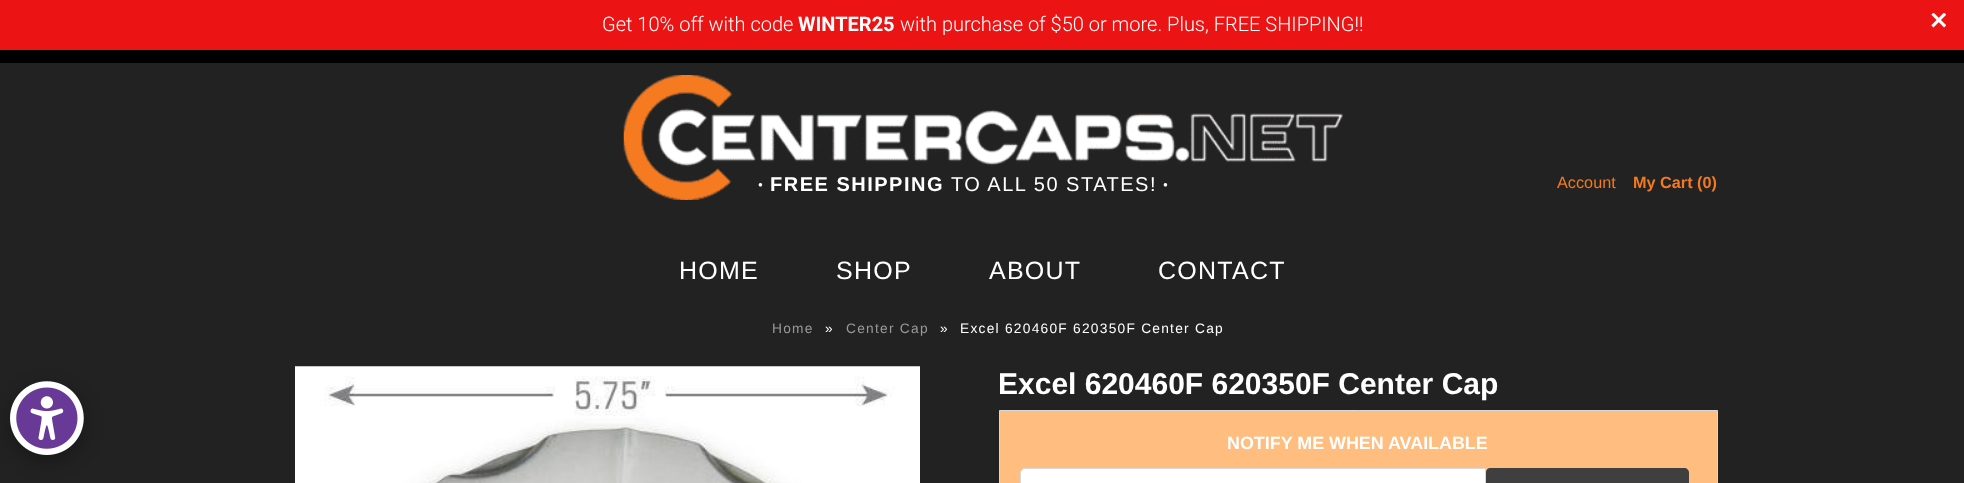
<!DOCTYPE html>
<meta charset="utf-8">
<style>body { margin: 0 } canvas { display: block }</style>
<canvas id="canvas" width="1964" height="483"></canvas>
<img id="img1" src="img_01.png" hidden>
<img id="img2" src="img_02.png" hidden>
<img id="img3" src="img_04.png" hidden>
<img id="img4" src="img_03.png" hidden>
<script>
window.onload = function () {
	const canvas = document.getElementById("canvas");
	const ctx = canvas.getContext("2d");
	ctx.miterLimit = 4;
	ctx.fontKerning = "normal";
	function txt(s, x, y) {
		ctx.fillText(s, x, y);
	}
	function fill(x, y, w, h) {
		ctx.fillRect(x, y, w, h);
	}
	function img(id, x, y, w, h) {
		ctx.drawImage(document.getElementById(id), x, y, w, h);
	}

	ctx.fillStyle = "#222222";
	fill(0, 0, 1964, 483);
	ctx.fillStyle = "rgba(0, 0, 0, 0.3)";
	ctx.filter = "blur(9.5px)";
	ctx.beginPath();
	ctx.roundRect(10, 388, 74, 73, 36.5);
	ctx.fill();
	ctx.filter = "none";
	img("img1", 10, 381, 74, 74);
	ctx.fillStyle = "#EB1313";
	fill(0, 0, 1964, 50);
	img("img2", 1931, 13, 15, 15);
	ctx.fillStyle = "#000000";
	fill(0, 50, 1964, 13);
	img("img3", 295, 366, 625, 117);
	ctx.fillStyle = "#FFBD7F";
	ctx.beginPath();
	ctx.rect(999.5, 410.5, 718, 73);
	ctx.fill();
	ctx.strokeStyle = "#D9D9D9";
	ctx.stroke();
	ctx.fillStyle = "#FFFFFF";
	ctx.beginPath();
	ctx.moveTo(1025, 468.5);
	ctx.lineTo(1485.5, 468.5);
	ctx.lineTo(1485.5, 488.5);
	ctx.lineTo(1025, 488.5);
	ctx.bezierCurveTo(1022.5, 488.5, 1020.5, 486.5, 1020.5, 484);
	ctx.lineTo(1020.5, 473);
	ctx.bezierCurveTo(1020.5, 470.5, 1022.5, 468.5, 1025, 468.5);
	ctx.closePath();
	ctx.fill();
	ctx.stroke();
	ctx.fillStyle = "#403F3F";
	ctx.beginPath();
	ctx.moveTo(1490, 468);
	ctx.lineTo(1684, 468);
	ctx.bezierCurveTo(1687, 468, 1689, 470, 1689, 473);
	ctx.lineTo(1689, 483);
	ctx.bezierCurveTo(1689, 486, 1687, 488, 1684, 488);
	ctx.lineTo(1490, 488);
	ctx.bezierCurveTo(1488, 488, 1486, 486, 1486, 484);
	ctx.lineTo(1486, 472);
	ctx.bezierCurveTo(1486, 470, 1488, 468, 1490, 468);
	ctx.closePath();
	ctx.fill();
	ctx.font = "300 20px Roboto";
	ctx.fillStyle = "#FFFFFF";
	txt("Get 10% off with code", 602, 31);
	ctx.font = "bold 20px Roboto";
	txt("WINTER25", 798, 31);
	ctx.font = "300 20px Roboto";
	txt("with purchase of $50 or more. Plus, FREE SHIPPING!!", 900, 31);
	ctx.letterSpacing = "1.5px";
	ctx.font = "8px Liberation Sans";
	txt("●", 758, 187);
	ctx.font = "bold 20px Liberation Sans";
	txt("FREE SHIPPING", 770, 191);
	ctx.font = "20px Liberation Sans";
	txt("TO ALL 50 STATES!", 951, 191);
	ctx.font = "8px Liberation Sans";
	txt("●", 1163, 187);
	img("img4", 623, 75, 720, 125);
	ctx.letterSpacing = "0px";
	ctx.font = "16.25px Liberation Sans";
	ctx.fillStyle = "#F47920";
	txt("Account", 1557, 188);
	ctx.font = "bold 16.25px Liberation Sans";
	txt("My Cart (0)", 1633, 188);
	ctx.letterSpacing = "1.25px";
	ctx.font = "25px Liberation Sans";
	ctx.fillStyle = "#FFFFFF";
	txt("HOME", 679, 279);
	txt("SHOP", 836, 279);
	txt("ABOUT", 989, 279);
	txt("CONTACT", 1158, 279);
	ctx.font = "13.75px Liberation Sans";
	ctx.fillStyle = "#999999";
	txt("Home", 772, 333);
	ctx.fillStyle = "#FFFFFF";
	txt("»", 825, 333);
	ctx.fillStyle = "#999999";
	txt("Center Cap", 846, 333);
	ctx.fillStyle = "#FFFFFF";
	txt("»", 940, 333);
	txt("Excel 620460F 620350F Center Cap", 960, 333);
	ctx.letterSpacing = "0px";
	ctx.font = "bold 30px Liberation Sans";
	txt("Excel 620460F 620350F Center Cap", 998, 394);
	ctx.font = "bold 17.9px Liberation Sans";
	txt("NOTIFY ME WHEN AVAILABLE", 1227, 449);
};
</script>
